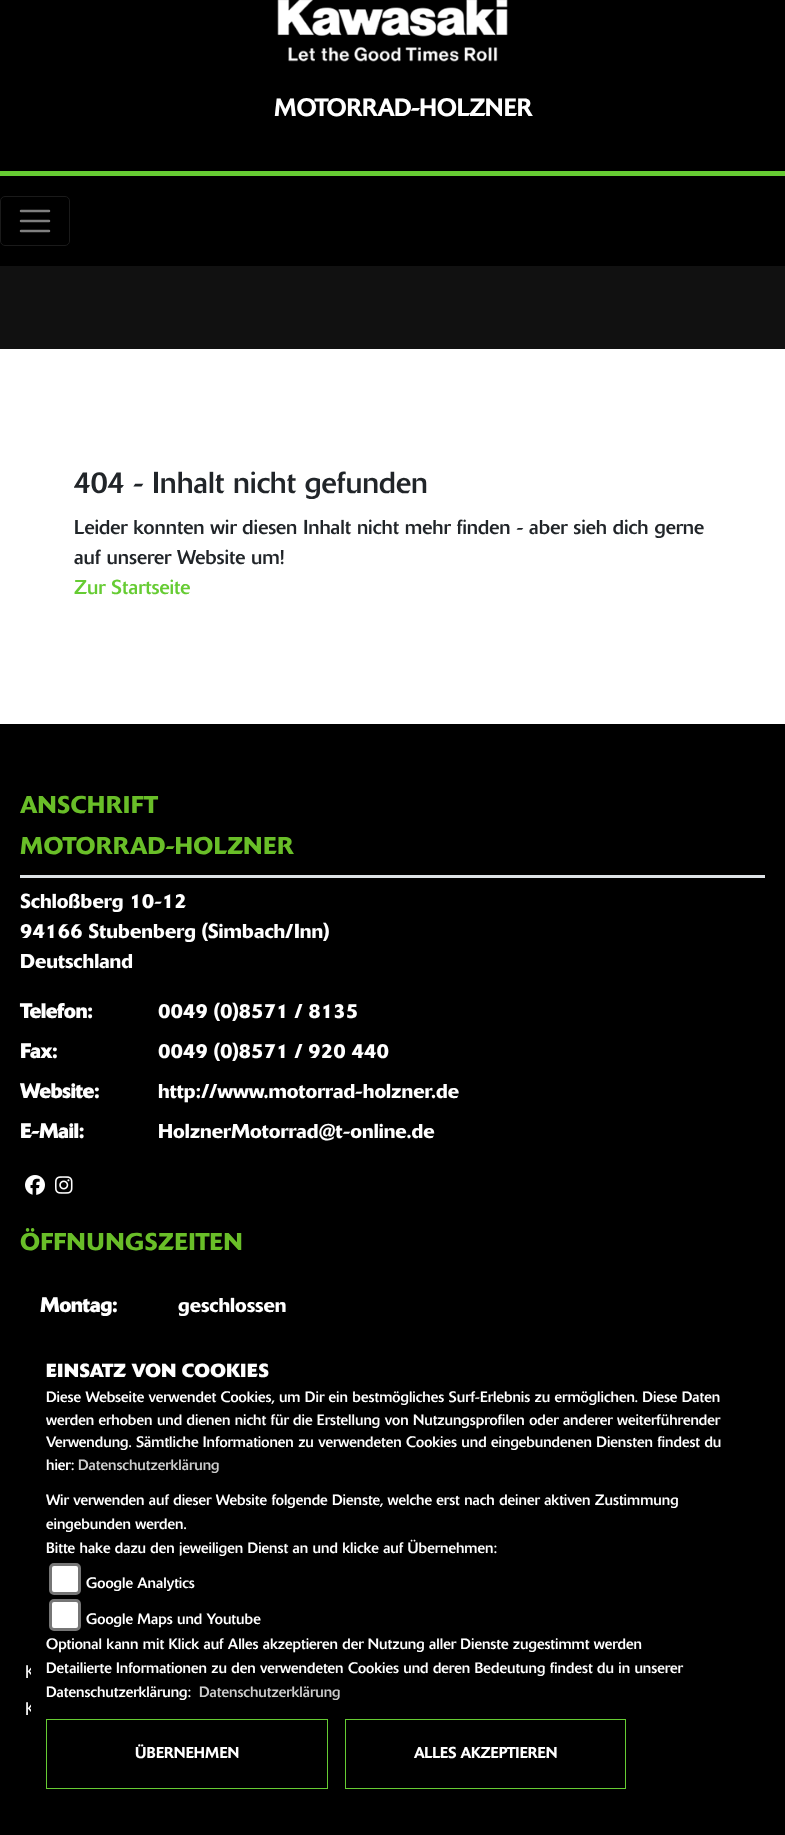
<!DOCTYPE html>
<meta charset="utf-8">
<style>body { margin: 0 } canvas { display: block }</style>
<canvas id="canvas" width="785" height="1835"></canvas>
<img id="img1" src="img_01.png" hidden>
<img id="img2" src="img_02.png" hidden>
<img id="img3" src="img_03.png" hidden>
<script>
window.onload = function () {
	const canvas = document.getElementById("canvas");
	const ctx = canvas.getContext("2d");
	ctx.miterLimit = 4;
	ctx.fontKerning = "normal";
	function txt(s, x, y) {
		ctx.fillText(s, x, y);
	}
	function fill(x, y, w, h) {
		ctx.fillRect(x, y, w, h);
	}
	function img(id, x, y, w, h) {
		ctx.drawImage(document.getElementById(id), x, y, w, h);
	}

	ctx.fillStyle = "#FFFFFF";
	fill(0, 0, 785, 1835);
	ctx.fillStyle = "#000000";
	fill(0, 0, 785, 266);
	ctx.fillStyle = "#66CC33";
	fill(0, 171, 785, 5);
	img("img1", 277, 0, 231, 62);
	ctx.beginPath();
	ctx.roundRect(0.5, 196.5, 69, 49, 4.5);
	ctx.strokeStyle = "#1A1A1A";
	ctx.stroke();
	ctx.beginPath();
	ctx.moveTo(21, 211);
	ctx.lineTo(49, 211);
	ctx.moveTo(21, 221);
	ctx.lineTo(49, 221);
	ctx.moveTo(21, 231);
	ctx.lineTo(49, 231);
	ctx.strokeStyle = "#808080";
	ctx.lineWidth = 2.5;
	ctx.lineCap = "round";
	ctx.stroke();
	ctx.fillStyle = "#111111";
	fill(0, 266, 785, 83);
	ctx.fillStyle = "#000000";
	fill(0, 724, 785, 1111);
	ctx.fillStyle = "#DEE2E6";
	fill(20, 875, 745, 3);
	img("img2", 25, 1175, 20, 20);
	img("img3", 55, 1176, 18, 18);
	ctx.save();
	ctx.beginPath();
	ctx.rect(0, 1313, 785, 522);
	ctx.clip();
	ctx.fillStyle = "#000000";
	ctx.filter = "blur(31px)";
	ctx.beginPath();
	ctx.rect(31, 1371, 723, 460);
	ctx.fill();
	ctx.filter = "none";
	ctx.restore();
	ctx.fillStyle = "#FFFFFF";
	ctx.beginPath();
	ctx.roundRect(50.5, 1564.5, 29, 29, 3.5);
	ctx.fill();
	ctx.strokeStyle = "#767676";
	ctx.lineWidth = 3;
	ctx.stroke();
	ctx.beginPath();
	ctx.roundRect(50.5, 1600.5, 29, 29, 3.5);
	ctx.fill();
	ctx.stroke();
	ctx.strokeStyle = "#66CC33";
	ctx.lineWidth = 1;
	ctx.strokeRect(46.5, 1719.5, 281, 69);
	ctx.strokeRect(345.5, 1719.5, 280, 69);
	ctx.font = "bold 24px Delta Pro";
	txt("MOTORRAD-HOLZNER", 274, 116);
	ctx.font = "30px Delta Pro";
	ctx.fillStyle = "#212529";
	txt("404 - Inhalt nicht gefunden", 74, 493);
	ctx.font = "20px Delta Pro";
	txt("Leider konnten wir diesen Inhalt nicht mehr finden - aber sieh dich gerne", 74, 534);
	txt("auf unserer Website um!", 74, 564);
	ctx.fillStyle = "#66CC33";
	txt("Zur Startseite", 74, 594);
	ctx.font = "500 24px Delta Pro";
	ctx.fillStyle = "#69BE28";
	txt("ANSCHRIFT", 20, 813);
	txt("MOTORRAD-HOLZNER", 20, 854);
	ctx.font = "500 20px Delta Pro";
	ctx.fillStyle = "#FFFFFF";
	txt("Schloßberg 10-12", 20, 908);
	txt("94166 Stubenberg (Simbach/Inn)", 20, 938);
	txt("Deutschland", 20, 968);
	ctx.font = "bold 20px 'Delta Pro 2'";
	txt("Telefon:", 20, 1018);
	ctx.font = "500 20px Delta Pro";
	txt("0049 (0)8571 / 8135", 158, 1018);
	ctx.font = "bold 20px 'Delta Pro 2'";
	txt("Fax:", 20, 1058);
	ctx.font = "500 20px Delta Pro";
	txt("0049 (0)8571 / 920 440", 158, 1058);
	ctx.font = "bold 20px 'Delta Pro 2'";
	txt("Website:", 20, 1098);
	ctx.font = "500 20px Delta Pro";
	txt("http://www.motorrad-holzner.de", 158, 1098);
	ctx.font = "bold 20px 'Delta Pro 2'";
	txt("E-Mail:", 20, 1138);
	ctx.font = "500 20px Delta Pro";
	txt("HolznerMotorrad@t-online.de", 158, 1138);
	ctx.font = "500 24px Delta Pro";
	ctx.fillStyle = "#69BE28";
	txt("ÖFFNUNGSZEITEN", 20, 1250);
	ctx.font = "bold 20px 'Delta Pro 2'";
	ctx.fillStyle = "#FFFFFF";
	txt("Montag:", 40, 1312);
	ctx.font = "500 20px Delta Pro";
	txt("geschlossen", 178, 1312);
	ctx.font = "300 18px Delta Pro";
	txt("K", 25, 1678);
	txt("K", 25, 1715);
	ctx.fillStyle = "#000000";
	fill(31, 1665, 5, 50);
	ctx.font = "bold 18.75px 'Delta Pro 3'";
	ctx.fillStyle = "#FFFFFF";
	txt("EINSATZ VON COOKIES", 46, 1377);
	ctx.font = "15px Delta Pro";
	txt("Diese Webseite verwendet Cookies, um Dir ein bestmögliches Surf-Erlebnis zu ermöglichen. Diese Daten", 46, 1402);
	txt("werden erhoben und dienen nicht für die Erstellung von Nutzungsprofilen oder anderer weiterführender", 46, 1425);
	txt("Verwendung. Sämtliche Informationen zu verwendeten Cookies und eingebundenen Diensten findest du", 46, 1447);
	txt("hier:", 46, 1470);
	ctx.fillStyle = "#CCCCCC";
	txt("Datenschutzerklärung", 78, 1470);
	ctx.fillStyle = "#FFFFFF";
	txt("Wir verwenden auf dieser Website folgende Dienste, welche erst nach deiner aktiven Zustimmung", 46, 1505);
	txt("eingebunden werden.", 46, 1529);
	txt("Bitte hake dazu den jeweiligen Dienst an und klicke auf Übernehmen:", 46, 1553);
	txt("Google Analytics", 86, 1588);
	txt("Google Maps und Youtube", 86, 1624);
	txt("Optional kann mit Klick auf Alles akzeptieren der Nutzung aller Dienste zugestimmt werden", 46, 1649);
	txt("Detailierte Informationen zu den verwendeten Cookies und deren Bedeutung findest du in unserer", 46, 1673);
	txt("Datenschutzerklärung:", 46, 1697);
	ctx.fillStyle = "#CCCCCC";
	txt("Datenschutzerklärung", 199, 1697);
	ctx.font = "bold 15px Delta Pro";
	ctx.fillStyle = "#FFFFFF";
	txt("ÜBERNEHMEN", 135, 1758);
	txt("ALLES AKZEPTIEREN", 414, 1758);
};
</script>
